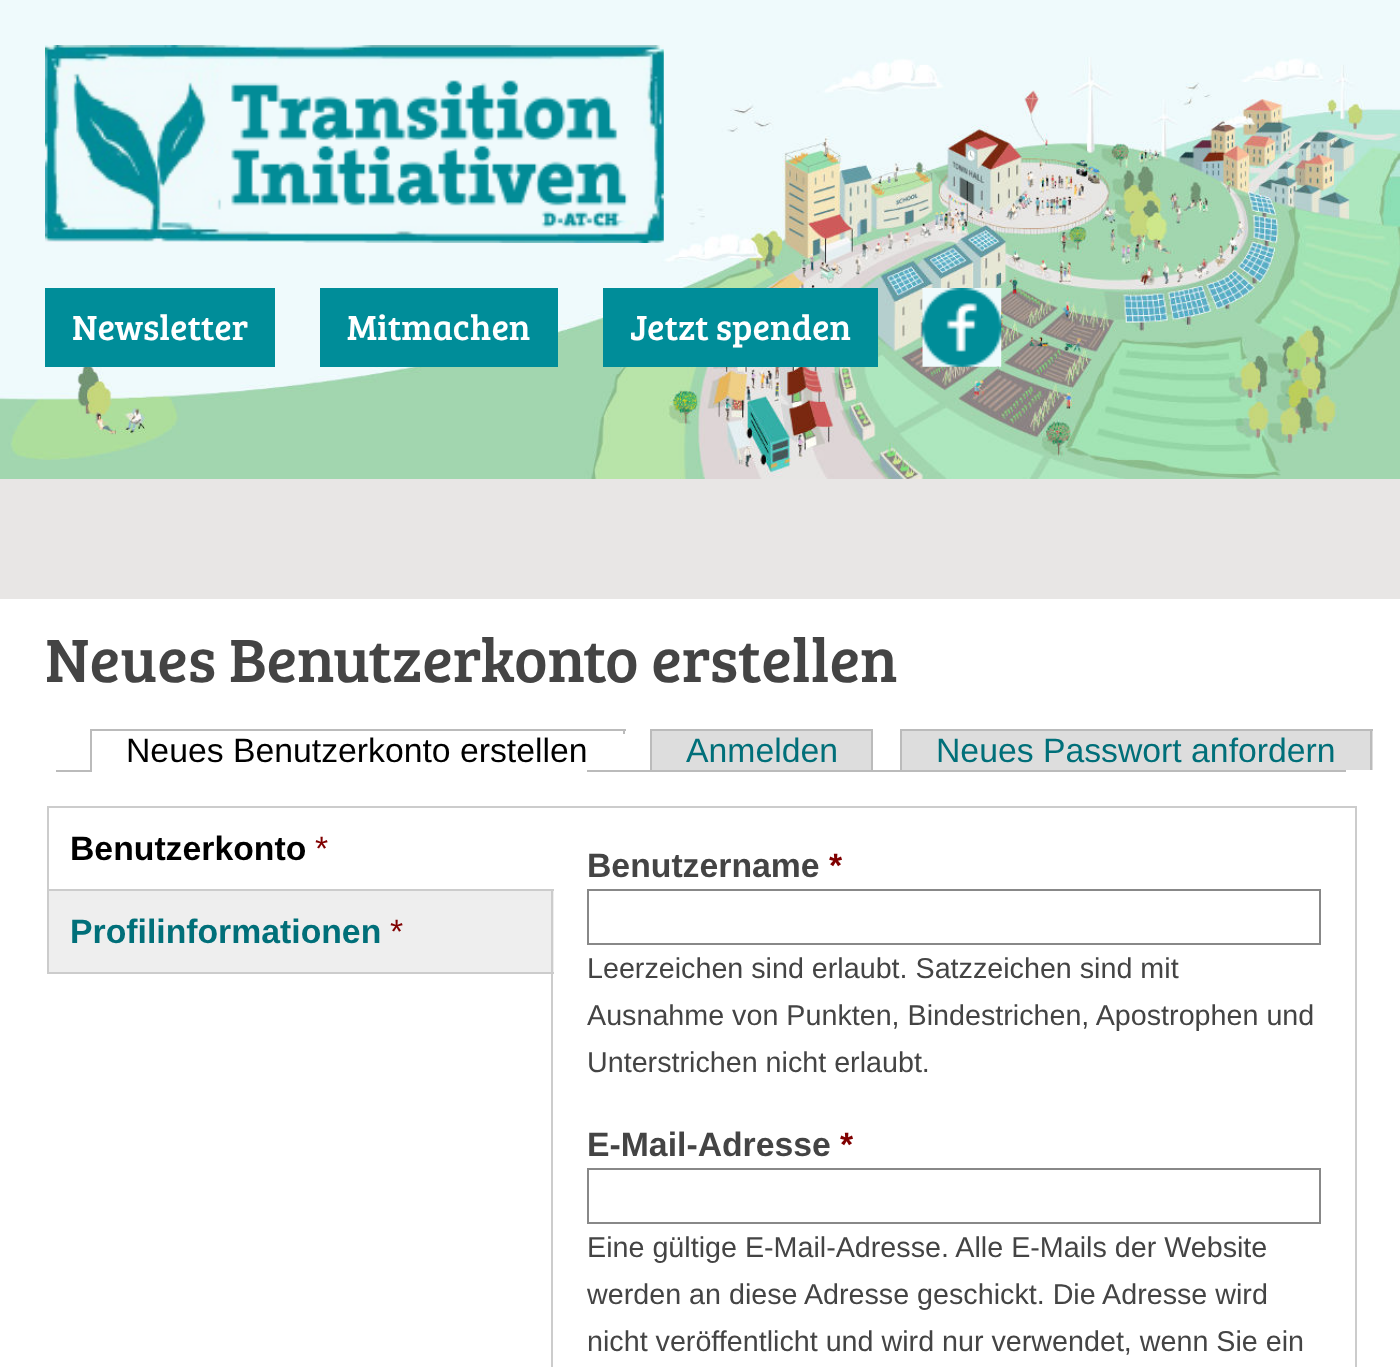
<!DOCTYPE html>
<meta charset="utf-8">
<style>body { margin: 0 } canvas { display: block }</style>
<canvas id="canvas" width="1400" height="1367"></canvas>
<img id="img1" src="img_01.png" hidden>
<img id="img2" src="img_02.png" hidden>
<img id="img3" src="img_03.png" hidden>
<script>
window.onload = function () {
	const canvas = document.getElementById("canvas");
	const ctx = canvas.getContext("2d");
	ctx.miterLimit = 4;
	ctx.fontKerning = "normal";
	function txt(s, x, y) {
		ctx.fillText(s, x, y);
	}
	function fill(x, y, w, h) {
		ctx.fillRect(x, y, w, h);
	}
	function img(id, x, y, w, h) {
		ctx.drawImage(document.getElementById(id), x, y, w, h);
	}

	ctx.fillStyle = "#FFFFFF";
	fill(0, 0, 1400, 1367);
	ctx.fillStyle = "#EFFAFC";
	fill(0, 0, 1400, 57);
	img("img1", 0, 57, 1400, 422);
	img("img2", 45, 45, 619, 198);
	ctx.fillStyle = "#008D99";
	fill(45, 288, 230, 79);
	fill(320, 288, 238, 79);
	fill(603, 288, 275, 79);
	img("img3", 922, 288, 80, 79);
	ctx.fillStyle = "#E8E6E5";
	fill(0, 479, 1400, 120);
	ctx.fillStyle = "#BBBBBB";
	fill(56, 770, 1290, 2);
	ctx.fillStyle = "#FFFFFF";
	fill(92, 770, 495, 2);
	ctx.fillStyle = "#BBBBBB";
	fill(90, 729, 536, 2);
	fill(90, 729, 2, 43);
	fill(623, 729, 2, 7);
	ctx.fillStyle = "#FFFFFF";
	fill(623, 734, 3, 2);
	ctx.fillStyle = "#DDDDDD";
	fill(652, 731, 219, 39);
	ctx.fillStyle = "#BBBBBB";
	fill(650, 729, 223, 2);
	fill(871, 729, 2, 41);
	fill(650, 729, 2, 41);
	ctx.fillStyle = "#DDDDDD";
	fill(902, 731, 471, 39);
	ctx.fillStyle = "#BBBBBB";
	fill(900, 729, 473, 2);
	fill(1370, 729, 2, 41);
	fill(900, 729, 2, 41);
	ctx.strokeStyle = "#CCCCCC";
	ctx.lineWidth = 2;
	ctx.strokeRect(552, 807, 804, 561);
	ctx.fillStyle = "#CCCCCC";
	fill(47, 806, 507, 2);
	ctx.fillStyle = "#FFFFFF";
	fill(551, 808, 2, 81);
	ctx.fillStyle = "#CCCCCC";
	fill(47, 889, 507, 2);
	fill(47, 808, 2, 83);
	ctx.fillStyle = "#EEEEEE";
	fill(49, 891, 505, 81);
	ctx.fillStyle = "#CCCCCC";
	fill(551, 891, 2, 83);
	fill(47, 972, 507, 2);
	fill(47, 891, 2, 83);
	ctx.strokeStyle = "#888888";
	ctx.strokeRect(588, 890, 732, 54);
	ctx.strokeRect(588, 1169, 732, 54);
	ctx.font = "36px Bree Serif";
	ctx.fillStyle = "#FFFFFF";
	txt("Newsletter", 72, 340);
	txt("Mitmachen", 347, 340);
	txt("Jetzt spenden", 630, 340);
	ctx.font = "63px Bree Serif";
	ctx.fillStyle = "#444444";
	txt("Neues Benutzerkonto erstellen", 45, 682);
	ctx.font = "33.75px Liberation Sans";
	ctx.fillStyle = "#000000";
	txt("Neues Benutzerkonto erstellen", 126, 762);
	ctx.fillStyle = "#006F79";
	txt("Anmelden", 686, 762);
	txt("Neues Passwort anfordern", 936, 762);
	ctx.font = "bold 33.75px Liberation Sans";
	ctx.fillStyle = "#000000";
	txt("Benutzerkonto", 70, 860);
	ctx.font = "33.75px Liberation Sans";
	ctx.fillStyle = "#800000";
	txt("*", 315, 860);
	ctx.font = "bold 33.75px Liberation Sans";
	ctx.fillStyle = "#006F79";
	txt("Profilinformationen", 70, 943);
	ctx.font = "33.75px Liberation Sans";
	ctx.fillStyle = "#800000";
	txt("*", 390, 943);
	ctx.font = "bold 33.75px Liberation Sans";
	ctx.fillStyle = "#444444";
	txt("Benutzername", 587, 877);
	ctx.fillStyle = "#800000";
	txt("*", 829, 877);
	ctx.font = "28.7px Liberation Sans";
	ctx.fillStyle = "#444444";
	txt("Leerzeichen sind erlaubt. Satzzeichen sind mit", 587, 978);
	txt("Ausnahme von Punkten, Bindestrichen, Apostrophen und", 587, 1025);
	txt("Unterstrichen nicht erlaubt.", 587, 1072);
	ctx.font = "bold 33.75px Liberation Sans";
	txt("E-Mail-Adresse", 587, 1156);
	ctx.fillStyle = "#800000";
	txt("*", 840, 1156);
	ctx.font = "28.7px Liberation Sans";
	ctx.fillStyle = "#444444";
	txt("Eine gültige E-Mail-Adresse. Alle E-Mails der Website", 587, 1257);
	txt("werden an diese Adresse geschickt. Die Adresse wird", 587, 1304);
	txt("nicht veröffentlicht und wird nur verwendet, wenn Sie ein", 587, 1351);
};
</script>
